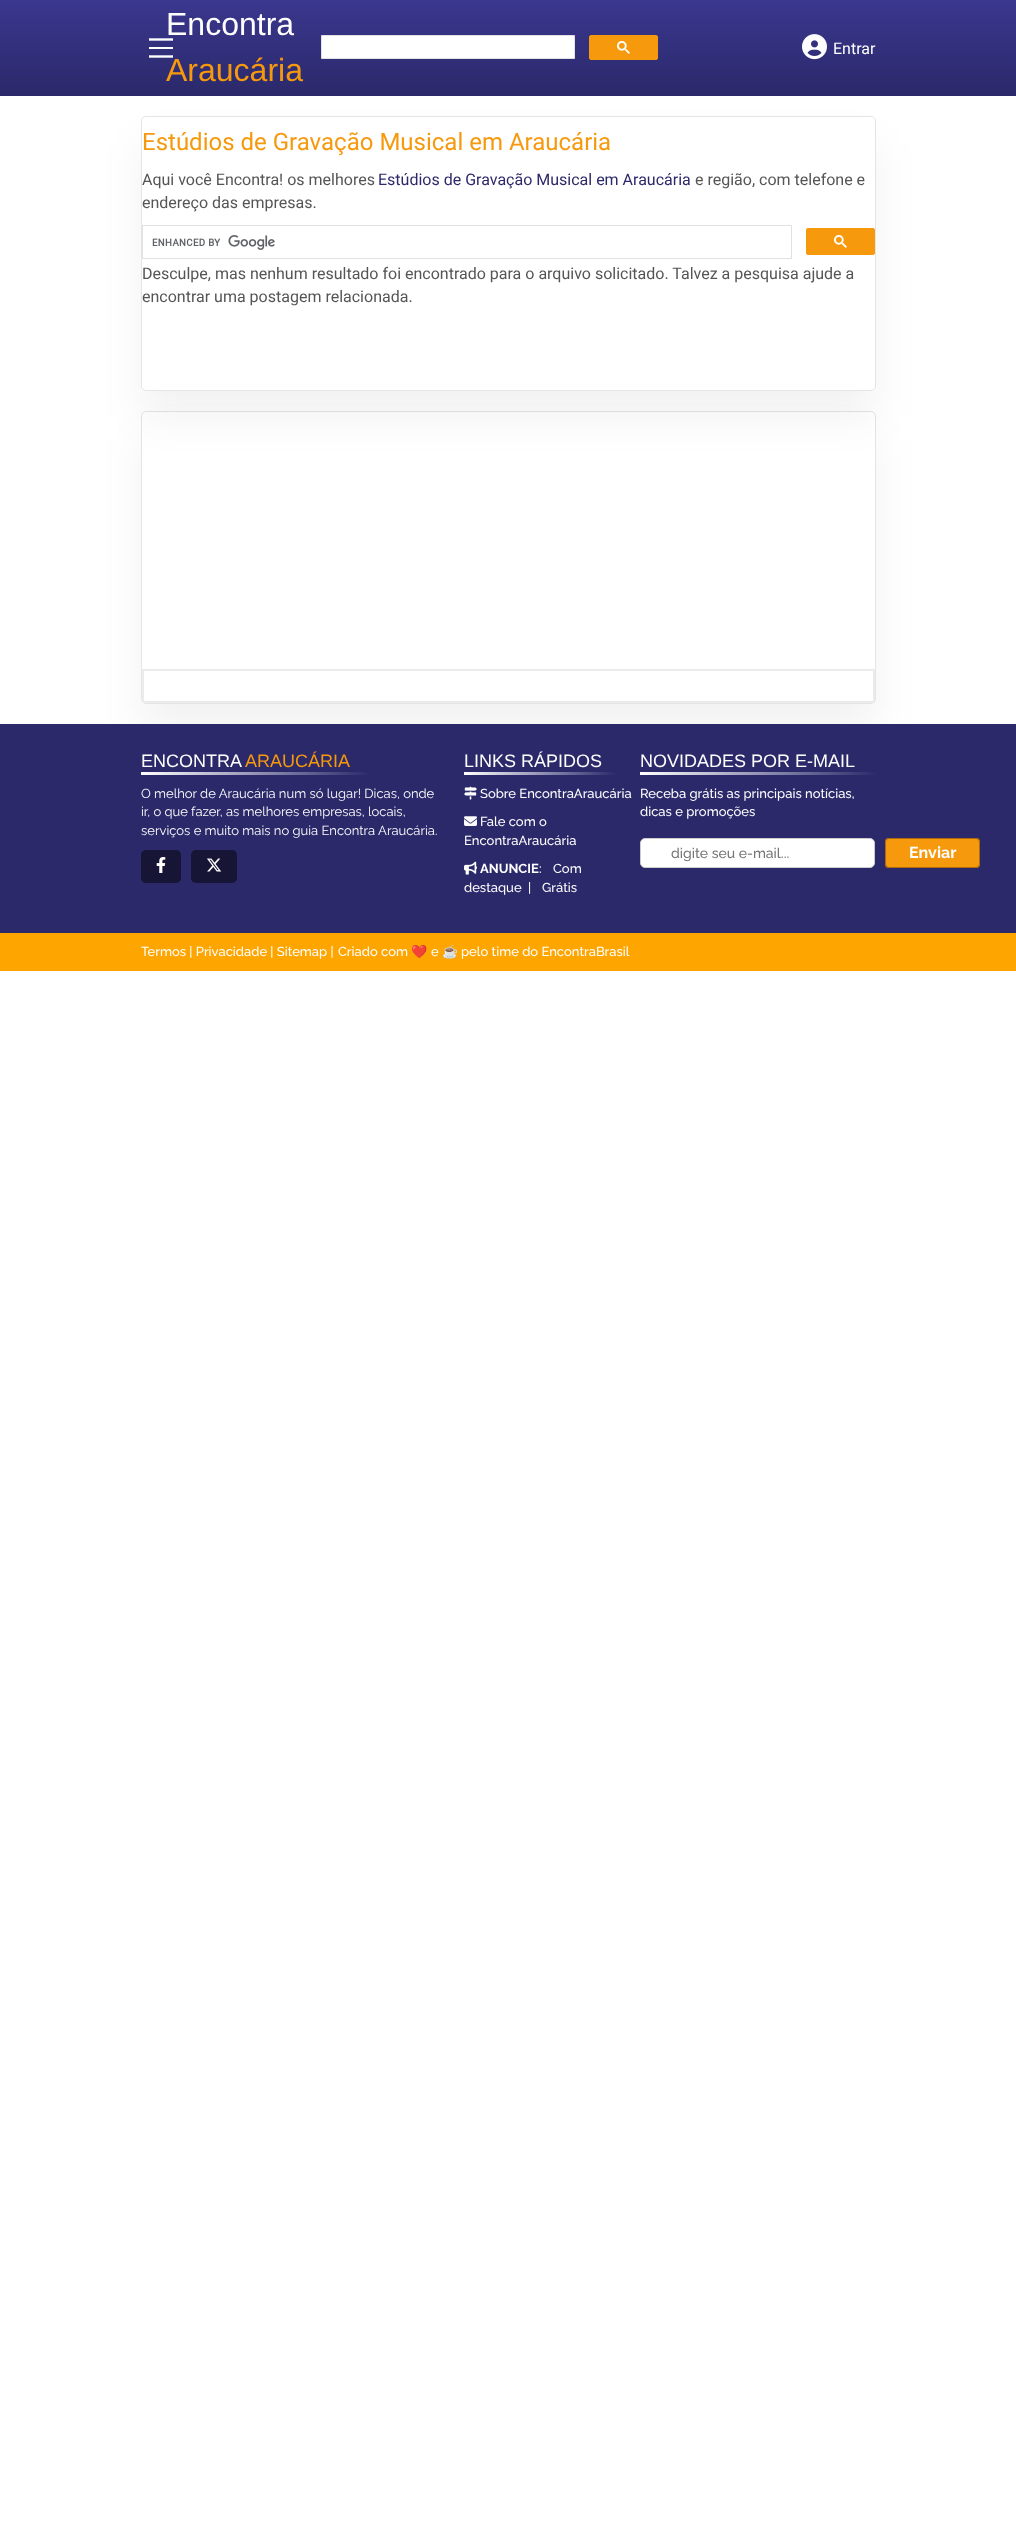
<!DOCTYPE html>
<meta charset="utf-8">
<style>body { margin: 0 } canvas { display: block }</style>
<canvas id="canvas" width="1016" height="2529"></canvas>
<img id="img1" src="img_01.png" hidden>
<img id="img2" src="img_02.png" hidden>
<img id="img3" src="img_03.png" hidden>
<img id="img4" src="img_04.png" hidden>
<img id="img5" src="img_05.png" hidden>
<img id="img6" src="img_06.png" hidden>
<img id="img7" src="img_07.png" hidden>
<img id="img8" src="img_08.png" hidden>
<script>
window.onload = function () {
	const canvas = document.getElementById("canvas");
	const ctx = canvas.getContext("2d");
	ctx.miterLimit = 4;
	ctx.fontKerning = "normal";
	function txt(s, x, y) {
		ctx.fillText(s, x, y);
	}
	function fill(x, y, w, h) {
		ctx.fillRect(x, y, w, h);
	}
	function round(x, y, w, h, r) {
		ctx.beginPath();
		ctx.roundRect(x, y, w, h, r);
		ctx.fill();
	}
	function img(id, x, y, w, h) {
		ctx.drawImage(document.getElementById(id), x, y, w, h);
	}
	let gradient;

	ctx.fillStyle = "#FFFFFF";
	fill(0, 0, 1016, 2529);
	ctx.save();
	ctx.beginPath();
	ctx.moveTo(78, 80);
	ctx.lineTo(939, 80);
	ctx.lineTo(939, 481);
	ctx.lineTo(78, 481);
	ctx.closePath();
	ctx.moveTo(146, 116);
	ctx.lineTo(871, 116);
	ctx.bezierCurveTo(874, 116, 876, 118, 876, 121);
	ctx.lineTo(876, 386);
	ctx.bezierCurveTo(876, 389, 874, 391, 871, 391);
	ctx.lineTo(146, 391);
	ctx.bezierCurveTo(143, 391, 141, 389, 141, 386);
	ctx.lineTo(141, 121);
	ctx.bezierCurveTo(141, 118, 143, 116, 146, 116);
	ctx.closePath();
	ctx.clip("evenodd");
	ctx.fillStyle = "rgba(0, 0, 0, 0.05)";
	ctx.filter = "blur(20.5px)";
	ctx.beginPath();
	ctx.roundRect(141, 143, 735, 275, 5);
	ctx.fill();
	ctx.filter = "none";
	ctx.restore();
	gradient = ctx.createLinearGradient(508, 0, 508, 96);
	gradient.addColorStop(0, "#3A378F");
	gradient.addColorStop(1, "#2B296A");
	ctx.fillStyle = gradient;
	fill(0, 0, 1016, 96);
	ctx.beginPath();
	ctx.moveTo(149, 39.5);
	ctx.lineTo(173, 39.5);
	ctx.strokeStyle = "#FEFEFE";
	ctx.lineWidth = 2.4;
	ctx.stroke();
	ctx.fillStyle = "#FEFEFE";
	fill(149, 47, 24, 2);
	ctx.beginPath();
	ctx.moveTo(149, 56.5);
	ctx.lineTo(173, 56.5);
	ctx.stroke();
	ctx.fillStyle = "#FFFFFF";
	ctx.beginPath();
	ctx.rect(321.5, 35.5, 253, 23);
	ctx.fill();
	ctx.strokeStyle = "#DFE1E5";
	ctx.lineWidth = 1;
	ctx.stroke();
	ctx.fillStyle = "#F6990D";
	ctx.beginPath();
	ctx.roundRect(589.5, 35.5, 68, 24, 1.5);
	ctx.fill();
	ctx.strokeStyle = "#F6990D";
	ctx.stroke();
	img("img1", 617, 41, 13, 13);
	img("img2", 802, 34, 25, 26);
	ctx.beginPath();
	ctx.roundRect(141.5, 116.5, 734, 274, 4.5);
	ctx.strokeStyle = "rgba(0, 0, 0, 0.1)";
	ctx.stroke();
	ctx.strokeStyle = "#DFE1E5";
	ctx.strokeRect(142.5, 225.5, 649, 33);
	img("img3", 152, 235, 123, 15);
	ctx.beginPath();
	ctx.roundRect(806.5, 228.5, 68, 26, 1.5);
	ctx.fill();
	ctx.strokeStyle = "#F6990D";
	ctx.stroke();
	img("img1", 834, 235, 13, 13);
	ctx.save();
	ctx.beginPath();
	ctx.moveTo(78, 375);
	ctx.lineTo(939, 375);
	ctx.lineTo(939, 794);
	ctx.lineTo(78, 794);
	ctx.closePath();
	ctx.moveTo(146, 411);
	ctx.lineTo(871, 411);
	ctx.bezierCurveTo(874, 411, 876, 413, 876, 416);
	ctx.lineTo(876, 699);
	ctx.bezierCurveTo(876, 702, 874, 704, 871, 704);
	ctx.lineTo(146, 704);
	ctx.bezierCurveTo(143, 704, 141, 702, 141, 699);
	ctx.lineTo(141, 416);
	ctx.bezierCurveTo(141, 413, 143, 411, 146, 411);
	ctx.closePath();
	ctx.clip("evenodd");
	ctx.fillStyle = "rgba(0, 0, 0, 0.05)";
	ctx.filter = "blur(20.5px)";
	ctx.beginPath();
	ctx.roundRect(141, 438, 735, 293, 5);
	ctx.fill();
	ctx.filter = "none";
	ctx.restore();
	ctx.beginPath();
	ctx.roundRect(141.5, 411.5, 734, 292, 4.5);
	ctx.strokeStyle = "rgba(0, 0, 0, 0.1)";
	ctx.stroke();
	ctx.strokeStyle = "#EBEBEB";
	ctx.strokeRect(142.5, 669.5, 732, 33);
	ctx.strokeRect(143.5, 670.5, 730, 31);
	ctx.fillStyle = "#2B296A";
	fill(0, 724, 1016, 209);
	gradient = ctx.createLinearGradient(141, 774, 370, 774);
	gradient.addColorStop(0, "#FFFFFF");
	gradient.addColorStop(1, "#2B296A");
	ctx.fillStyle = gradient;
	fill(141, 772, 229, 3);
	ctx.fillStyle = "#161535";
	round(141, 850, 40, 33, 5);
	img("img4", 156, 857, 10, 16);
	round(191, 850, 46, 33, 5);
	img("img5", 207, 858, 15, 14);
	gradient = ctx.createLinearGradient(464, 774, 616, 774);
	gradient.addColorStop(0, "#FFFFFF");
	gradient.addColorStop(1, "#2B296A");
	ctx.fillStyle = gradient;
	fill(464, 772, 152, 3);
	img("img6", 464, 786, 13, 14);
	img("img7", 464, 816, 13, 10);
	img("img8", 464, 861, 13, 14);
	gradient = ctx.createLinearGradient(640, 774, 877, 774);
	gradient.addColorStop(0, "#FFFFFF");
	gradient.addColorStop(1, "#2B296A");
	ctx.fillStyle = gradient;
	fill(640, 772, 237, 3);
	ctx.fillStyle = "#FFFFFF";
	ctx.beginPath();
	ctx.roundRect(640.5, 838.5, 234, 29, 4.5);
	ctx.fill();
	ctx.strokeStyle = "#CCCCCC";
	ctx.stroke();
	ctx.fillStyle = "#F6990D";
	round(885, 838, 95, 30, 4);
	ctx.beginPath();
	ctx.roundRect(885.5, 838.5, 94, 29, 3.5);
	ctx.strokeStyle = "rgba(0, 0, 0, 0.3)";
	ctx.stroke();
	ctx.fillStyle = "#FFA500";
	fill(0, 933, 1016, 38);
	ctx.font = "32px Liberation Sans";
	ctx.fillStyle = "#FEFEFE";
	txt("Encontra", 166, 35);
	ctx.fillStyle = "#F6990D";
	txt("Araucária", 166, 81);
	ctx.font = "16px Roboto";
	ctx.fillStyle = "#FEFEFE";
	txt("Entrar", 833, 54);
	ctx.font = "24px Roboto";
	ctx.fillStyle = "#F6990D";
	txt("Estúdios de Gravação Musical em Araucária", 142, 150);
	ctx.font = "16px Roboto";
	ctx.fillStyle = "#555555";
	txt("Aqui você Encontra! os melhores", 142, 185);
	ctx.fillStyle = "#2B296A";
	txt("Estúdios de Gravação Musical em Araucária", 378, 185);
	ctx.fillStyle = "#555555";
	txt("e região, com telefone e", 695, 185);
	txt("endereço das empresas.", 142, 208);
	txt("Desculpe, mas nenhum resultado foi encontrado para o arquivo solicitado. Talvez a pesquisa ajude a", 142, 279);
	txt("encontrar uma postagem relacionada.", 142, 302);
	ctx.font = "18px Liberation Sans";
	ctx.fillStyle = "#FEFEFE";
	txt("ENCONTRA", 141, 767);
	ctx.fillStyle = "#F6990D";
	txt("ARAUCÁRIA", 245, 767);
	ctx.font = "13px Raleway";
	ctx.fillStyle = "#FEFEFE";
	txt("O melhor de Araucária num só lugar! Dicas, onde", 141, 798);
	txt("ir, o que fazer, as melhores empresas, locais,", 141, 816);
	txt("serviços e muito mais no guia Encontra Araucária.", 141, 835);
	ctx.font = "18px Liberation Sans";
	txt("LINKS RÁPIDOS", 464, 767);
	ctx.font = "500 13px Raleway";
	txt("Sobre EncontraAraucária", 480, 798);
	txt("Fale com o", 480, 826);
	txt("EncontraAraucária", 464, 845);
	ctx.font = "bold 13px Raleway";
	txt("ANUNCIE", 480, 873);
	ctx.font = "500 13px Raleway";
	txt(":", 539, 873);
	txt("Com", 553, 873);
	txt("destaque", 464, 892);
	txt("|", 528, 892);
	txt("Grátis", 542, 892);
	ctx.font = "18px Liberation Sans";
	txt("NOVIDADES POR E-MAIL", 640, 767);
	ctx.font = "500 13px Raleway";
	txt("Receba grátis as principais notícias,", 640, 798);
	txt("dicas e promoções", 640, 816);
	ctx.font = "500 14px Raleway";
	ctx.fillStyle = "#757575";
	txt("digite seu e-mail...", 671, 858);
	ctx.font = "bold 16px Raleway";
	ctx.fillStyle = "#FEFEFE";
	txt("Enviar", 909, 858);
	ctx.font = "500 13px Raleway";
	txt("Termos | Privacidade | Sitemap |", 141, 956);
	txt("Criado com", 338, 956);
	ctx.font = "13px Noto Color Emoji";
	txt("❤️", 411, 956);
	ctx.font = "500 13px Raleway";
	txt("e", 431, 956);
	ctx.font = "13px Noto Color Emoji";
	txt("☕", 442, 956);
	ctx.font = "500 13px Raleway";
	txt("pelo time do EncontraBrasil", 461, 956);
};
</script>
